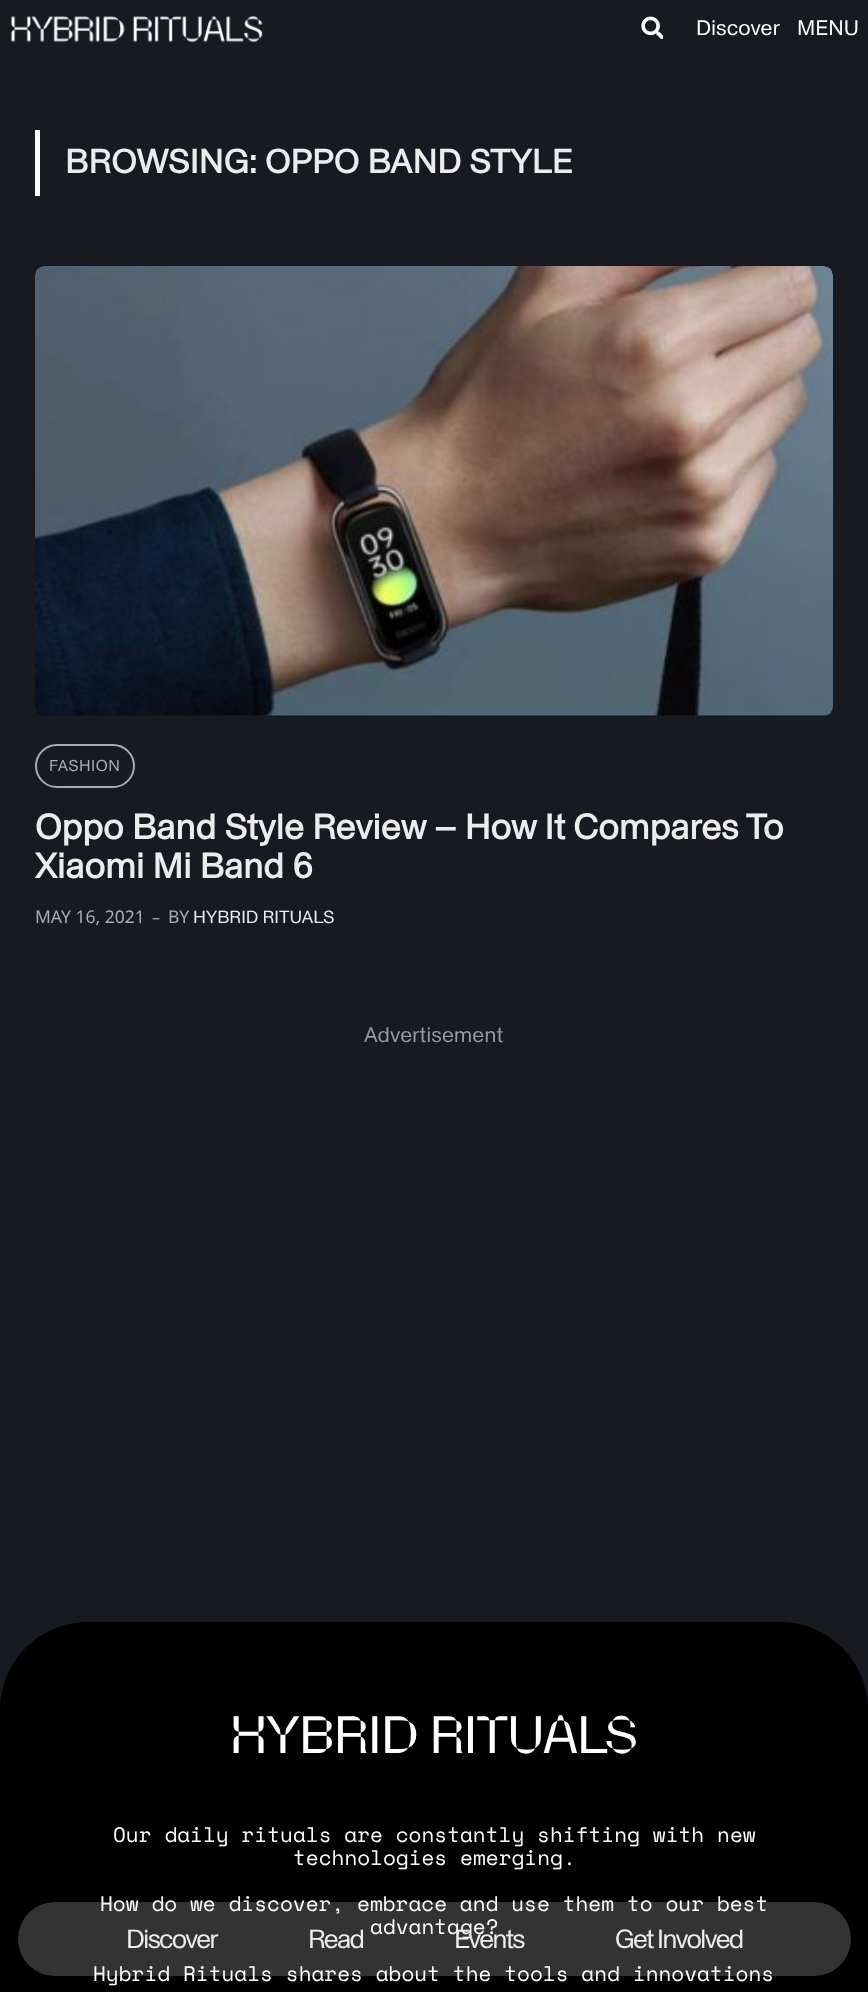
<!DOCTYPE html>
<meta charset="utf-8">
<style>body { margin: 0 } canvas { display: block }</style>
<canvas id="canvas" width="868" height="1992"></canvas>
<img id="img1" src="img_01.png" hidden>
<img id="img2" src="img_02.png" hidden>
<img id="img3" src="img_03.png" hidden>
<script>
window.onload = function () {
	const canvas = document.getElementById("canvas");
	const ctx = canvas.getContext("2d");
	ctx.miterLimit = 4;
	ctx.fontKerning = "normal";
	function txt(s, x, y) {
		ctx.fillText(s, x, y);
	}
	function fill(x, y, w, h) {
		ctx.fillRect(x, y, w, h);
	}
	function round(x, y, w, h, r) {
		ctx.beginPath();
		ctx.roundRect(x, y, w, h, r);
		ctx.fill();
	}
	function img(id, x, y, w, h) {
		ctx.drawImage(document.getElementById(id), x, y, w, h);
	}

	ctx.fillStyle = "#181A22";
	fill(0, 0, 868, 1992);
	img("img1", 10, 16, 253, 27);
	img("img2", 641, 16, 22, 23);
	ctx.fillStyle = "#FFFFFF";
	fill(35, 130, 5, 66);
	img("img3", 35, 266, 798, 450);
	ctx.beginPath();
	ctx.roundRect(36, 745, 98, 42, 21);
	ctx.strokeStyle = "#AAABB3";
	ctx.lineWidth = 2;
	ctx.stroke();
	ctx.fillStyle = "#000000";
	ctx.beginPath();
	ctx.moveTo(88, 1622);
	ctx.lineTo(780, 1622);
	ctx.bezierCurveTo(828.5, 1622, 868, 1661.5, 868, 1710);
	ctx.lineTo(868, 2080);
	ctx.lineTo(0, 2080);
	ctx.lineTo(0, 1710);
	ctx.bezierCurveTo(0, 1661.5, 39.5, 1622, 88, 1622);
	ctx.closePath();
	ctx.fill();
	ctx.font = "21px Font";
	ctx.fillStyle = "#FFFFFF";
	txt("Discover", 696, 35);
	txt("MENU", 797, 35);
	ctx.letterSpacing = "0.3px";
	ctx.font = "bold 33.25px Font";
	ctx.fillStyle = "#ECECEC";
	txt("BROWSING: OPPO BAND STYLE", 65, 173);
	ctx.letterSpacing = "0.5px";
	ctx.font = "15.75px Font";
	ctx.fillStyle = "#AAABB3";
	txt("FASHION", 49, 771);
	ctx.letterSpacing = "0px";
	ctx.font = "bold 35px Font";
	ctx.fillStyle = "#ECECEC";
	txt("Oppo Band Style Review – How It Compares To", 35, 839);
	txt("Xiaomi Mi Band 6", 35, 878);
	ctx.font = "17.5px Noto Sans";
	ctx.fillStyle = "#AAABB3";
	txt("MAY 16, 2021", 35, 923);
	ctx.font = "16px Noto Sans";
	txt("–", 152, 923);
	ctx.font = "17.5px Noto Sans";
	txt("BY", 168, 923);
	ctx.font = "17.5px Font";
	ctx.fillStyle = "#ECECEC";
	txt("HYBRID RITUALS", 193, 923);
	ctx.font = "21px Font";
	ctx.fillStyle = "#999999";
	txt("Advertisement", 364, 1042);
	ctx.letterSpacing = "-0.9px";
	ctx.font = "52.5px 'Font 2'";
	ctx.fillStyle = "#FFFFFF";
	txt("HYBRID RITUALS", 230, 1753);
	ctx.letterSpacing = "0px";
	ctx.font = "21px Space Mono";
	txt("Our daily rituals are constantly shifting with new", 113, 1842);
	txt("technologies emerging.", 293, 1865);
	txt("How do we discover, embrace and use them to our best", 100, 1911);
	txt("advantage?", 370, 1934);
	txt("Hybrid Rituals shares about the tools and innovations", 93, 1981);
	ctx.fillStyle = "rgba(255, 255, 255, 0.2)";
	round(18, 1902, 833, 74, 37);
	ctx.letterSpacing = "-1.75px";
	ctx.font = "26.25px Font";
	ctx.fillStyle = "#ECECEC";
	txt("Discover", 126, 1948);
	txt("Read", 308, 1948);
	txt("Events", 454, 1948);
	txt("Get Involved", 615, 1948);
};
</script>
